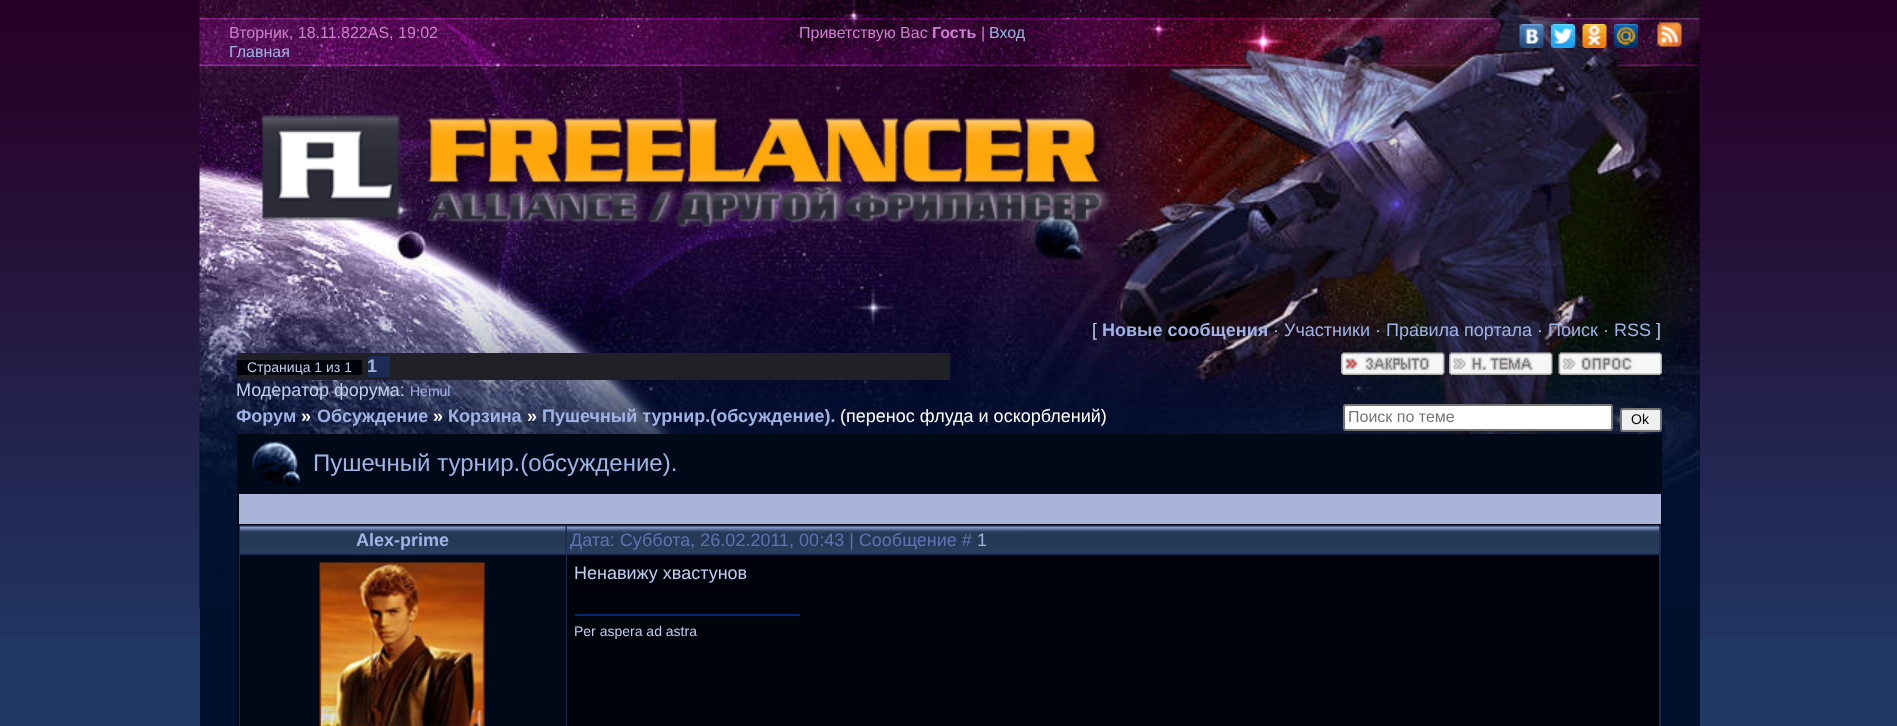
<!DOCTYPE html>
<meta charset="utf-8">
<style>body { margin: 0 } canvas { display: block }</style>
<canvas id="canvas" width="1897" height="726"></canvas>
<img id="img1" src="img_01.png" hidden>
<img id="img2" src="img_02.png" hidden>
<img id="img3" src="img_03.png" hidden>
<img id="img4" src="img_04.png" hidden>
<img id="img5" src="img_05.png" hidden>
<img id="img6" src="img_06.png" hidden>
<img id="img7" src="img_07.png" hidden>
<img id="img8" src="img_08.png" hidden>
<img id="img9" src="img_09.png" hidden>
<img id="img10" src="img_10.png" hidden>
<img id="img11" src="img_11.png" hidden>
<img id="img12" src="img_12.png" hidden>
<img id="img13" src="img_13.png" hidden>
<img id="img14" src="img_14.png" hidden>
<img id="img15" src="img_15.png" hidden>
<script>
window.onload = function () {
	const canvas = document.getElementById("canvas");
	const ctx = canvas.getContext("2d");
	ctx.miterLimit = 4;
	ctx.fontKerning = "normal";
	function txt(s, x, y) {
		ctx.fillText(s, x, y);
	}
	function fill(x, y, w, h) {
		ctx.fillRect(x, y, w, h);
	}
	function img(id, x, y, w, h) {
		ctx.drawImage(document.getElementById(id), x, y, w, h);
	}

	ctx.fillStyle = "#203864";
	fill(0, 0, 1897, 726);
	img("img1", 0, 0, 1897, 638);
	ctx.fillStyle = "#00112E";
	fill(200, 0, 1500, 726);
	img("img2", 199, 0, 1501, 608);
	img("img3", 1519, 24, 25, 24);
	img("img4", 1551, 24, 24, 24);
	img("img5", 1582, 24, 25, 24);
	img("img6", 1614, 24, 24, 24);
	img("img7", 1657, 22, 25, 25);
	img("img8", 262, 115, 849, 113);
	ctx.fillStyle = "#1F2127";
	fill(237, 353, 713, 27);
	ctx.fillStyle = "#00040A";
	fill(237, 360, 125, 15);
	ctx.fillStyle = "#1D2C57";
	fill(368, 356, 22, 21);
	img("img9", 1341, 352, 104, 23);
	img("img10", 1449, 352, 104, 23);
	img("img11", 1558, 352, 104, 23);
	ctx.fillStyle = "#FFFFFF";
	ctx.beginPath();
	ctx.roundRect(1344, 405, 268, 25, 2);
	ctx.fill();
	ctx.strokeStyle = "#767676";
	ctx.lineWidth = 2;
	ctx.stroke();
	ctx.fillStyle = "#EFEFEF";
	ctx.beginPath();
	ctx.roundRect(1621, 409, 40, 22, 2);
	ctx.fill();
	ctx.stroke();
	ctx.fillStyle = "#000918";
	fill(237, 434, 1425, 292);
	img("img12", 252, 441, 48, 45);
	ctx.fillStyle = "#A9B5D8";
	fill(239, 494, 1422, 30);
	ctx.fillStyle = "#1D2C57";
	fill(239, 525, 1422, 201);
	img("img13", 240, 526, 326, 28);
	img("img14", 567, 526, 1092, 28);
	ctx.fillStyle = "#000918";
	fill(240, 555, 326, 171);
	img("img15", 319, 562, 166, 164);
	ctx.fillStyle = "#00040A";
	fill(567, 555, 1092, 171);
	ctx.fillStyle = "#002A71";
	fill(575, 614, 225, 2);
	ctx.font = "16px Liberation Sans";
	ctx.fillStyle = "#CC80CE";
	txt("Вторник, 18.11.822AS, 19:02", 229, 38);
	txt("Приветствую Вас", 799, 38);
	ctx.font = "bold 16px Liberation Sans";
	txt("Гость", 932, 38);
	ctx.font = "16px Liberation Sans";
	txt("|", 981, 38);
	ctx.fillStyle = "#9FB4E5";
	txt("Вход", 989, 38);
	txt("Главная", 229, 57);
	ctx.font = "18px Liberation Sans";
	ctx.fillStyle = "#BFCDEF";
	txt("[", 1092, 336);
	ctx.font = "bold 18px Liberation Sans";
	ctx.fillStyle = "#9FB4E5";
	txt("Новые сообщения", 1102, 336);
	ctx.font = "18px Liberation Sans";
	ctx.fillStyle = "#BFCDEF";
	txt("·", 1273, 336);
	ctx.fillStyle = "#9FB4E5";
	txt("Участники", 1284, 336);
	ctx.fillStyle = "#BFCDEF";
	txt("·", 1375, 336);
	ctx.fillStyle = "#9FB4E5";
	txt("Правила портала", 1386, 336);
	ctx.fillStyle = "#BFCDEF";
	txt("·", 1537, 336);
	ctx.fillStyle = "#9FB4E5";
	txt("Поиск", 1548, 336);
	ctx.fillStyle = "#BFCDEF";
	txt("·", 1603, 336);
	ctx.fillStyle = "#9FB4E5";
	txt("RSS", 1614, 336);
	ctx.fillStyle = "#BFCDEF";
	txt("]", 1656, 336);
	ctx.font = "14px Liberation Sans";
	txt("Страница 1 из 1", 247, 372);
	ctx.font = "bold 18px Liberation Sans";
	ctx.fillStyle = "#A9B5D8";
	txt("1", 367, 372);
	ctx.font = "18px Liberation Sans";
	ctx.fillStyle = "#BFCDEF";
	txt("Модератор форума:", 236, 396);
	ctx.font = "14px Liberation Sans";
	ctx.fillStyle = "#9FB4E5";
	txt("Hemul", 410, 396);
	ctx.font = "bold 18px Liberation Sans";
	txt("Форум", 236, 422);
	ctx.fillStyle = "#FFFFFF";
	txt("»", 301, 422);
	ctx.fillStyle = "#9FB4E5";
	txt("Обсуждение", 317, 422);
	ctx.fillStyle = "#FFFFFF";
	txt("»", 433, 422);
	ctx.fillStyle = "#9FB4E5";
	txt("Корзина", 448, 422);
	ctx.fillStyle = "#FFFFFF";
	txt("»", 527, 422);
	ctx.fillStyle = "#9FB4E5";
	txt("Пушечный турнир.(обсуждение).", 542, 422);
	ctx.font = "18px Liberation Sans";
	ctx.fillStyle = "#FFFFFF";
	txt("(перенос флуда и оскорблений)", 840, 422);
	ctx.font = "16px Liberation Sans";
	ctx.fillStyle = "#757575";
	txt("Поиск по теме", 1348, 422);
	ctx.font = "14px Liberation Sans";
	ctx.fillStyle = "#000000";
	txt("Ok", 1631, 424);
	ctx.font = "24px Liberation Sans";
	ctx.fillStyle = "#9FB4E5";
	txt("Пушечный турнир.(обсуждение).", 313, 471);
	ctx.font = "bold 18px Liberation Sans";
	txt("Alex-prime", 356, 546);
	ctx.font = "18px Liberation Sans";
	ctx.fillStyle = "#5D74B2";
	txt("Дата: Суббота, 26.02.2011, 00:43 | Сообщение #", 570, 546);
	ctx.fillStyle = "#9FB4E5";
	txt("1", 977, 546);
	ctx.fillStyle = "#BFCDEF";
	txt("Ненавижу хвастунов", 574, 579);
	ctx.font = "14px Liberation Sans";
	txt("Per aspera ad astra", 574, 636);
};
</script>
